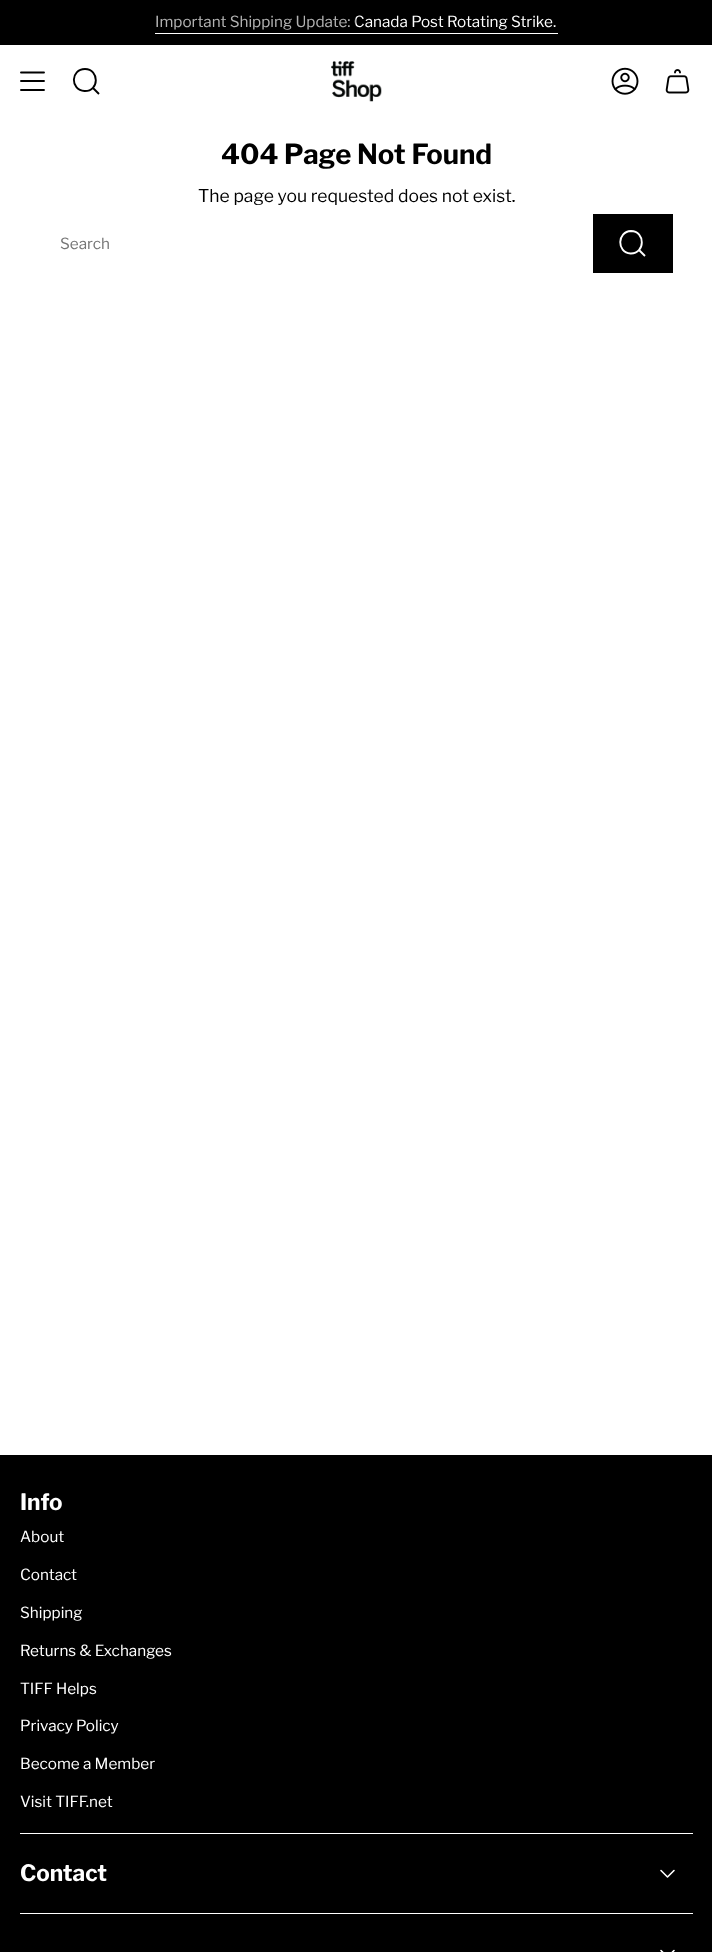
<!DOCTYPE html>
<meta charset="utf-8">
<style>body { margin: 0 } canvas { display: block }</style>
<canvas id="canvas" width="712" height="1952"></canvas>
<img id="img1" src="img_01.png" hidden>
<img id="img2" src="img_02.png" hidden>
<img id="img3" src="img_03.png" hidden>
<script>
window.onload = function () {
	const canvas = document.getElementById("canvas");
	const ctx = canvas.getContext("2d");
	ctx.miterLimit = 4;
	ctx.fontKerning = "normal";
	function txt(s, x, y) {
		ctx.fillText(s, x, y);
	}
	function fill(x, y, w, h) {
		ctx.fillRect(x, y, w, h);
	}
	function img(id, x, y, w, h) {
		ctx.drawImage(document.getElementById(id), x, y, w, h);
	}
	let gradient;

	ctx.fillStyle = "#FFFFFF";
	fill(0, 0, 712, 1952);
	ctx.fillStyle = "#000000";
	fill(0, 0, 712, 45);
	ctx.fillStyle = "#FFFFFF";
	fill(155, 33, 403, 1);
	ctx.beginPath();
	ctx.moveTo(21, 72.5);
	ctx.lineTo(44, 72.5);
	ctx.moveTo(21, 81);
	ctx.lineTo(44, 81);
	ctx.moveTo(21, 90);
	ctx.lineTo(44, 90);
	ctx.strokeStyle = "#000000";
	ctx.lineWidth = 1.9;
	ctx.lineCap = "round";
	ctx.lineJoin = "round";
	ctx.stroke();
	ctx.beginPath();
	ctx.moveTo(85, 69);
	ctx.bezierCurveTo(99.5, 69, 99.5, 91.5, 84.5, 91);
	ctx.bezierCurveTo(70, 90, 70.5, 69, 85, 69);
	ctx.closePath();
	ctx.moveTo(92.5, 87.5);
	ctx.lineTo(99, 94);
	ctx.lineCap = "butt";
	ctx.lineJoin = "miter";
	ctx.stroke();
	img("img1", 331, 61, 51, 41);
	img("img2", 611, 67, 28, 28);
	img("img3", 665, 69, 25, 25);
	ctx.fillStyle = "#000000";
	fill(593, 214, 80, 59);
	ctx.beginPath();
	ctx.moveTo(631, 231);
	ctx.bezierCurveTo(645.5, 231, 645.5, 254, 630.5, 253.5);
	ctx.bezierCurveTo(616.5, 252.5, 617, 231.5, 631, 231);
	ctx.closePath();
	ctx.moveTo(639, 250);
	ctx.lineTo(645, 256);
	ctx.strokeStyle = "#FFFFFF";
	ctx.stroke();
	fill(0, 1455, 712, 497);
	ctx.fillStyle = "#FFFFFF";
	fill(20, 1833, 673, 1);
	fill(20, 1913, 673, 1);
	ctx.beginPath();
	ctx.moveTo(661, 1870.5);
	ctx.lineTo(667.5, 1877);
	ctx.lineTo(674, 1870.5);
	ctx.lineWidth = 1.6;
	ctx.lineCap = "round";
	ctx.lineJoin = "round";
	ctx.stroke();
	ctx.beginPath();
	ctx.moveTo(661, 1950.5);
	ctx.lineTo(667.5, 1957);
	ctx.lineTo(674, 1950.5);
	ctx.stroke();
	ctx.font = "15.3px Libre Franklin";
	gradient = ctx.createLinearGradient(155, 23, 557, 22);
	gradient.addColorStop(0, "#B3B3B3");
	gradient.addColorStop(0.5, "#B3B3B3");
	gradient.addColorStop(0.5, "#FFFFFF");
	gradient.addColorStop(1, "#FFFFFF");
	ctx.fillStyle = gradient;
	txt("Important Shipping Update: Canada Post Rotating Strike.", 155, 27);
	ctx.font = "bold 27.5px Libre Franklin";
	ctx.fillStyle = "#000000";
	txt("404 Page Not Found", 221, 164);
	ctx.font = "17.5px Libre Franklin";
	txt("The page you requested does not exist.", 198, 202);
	ctx.font = "15.3px Libre Franklin";
	ctx.fillStyle = "#757575";
	txt("Search", 60, 249);
	ctx.font = "bold 22.5px Libre Franklin";
	ctx.fillStyle = "#FFFFFF";
	txt("Info", 20, 1510);
	ctx.font = "15.3px Libre Franklin";
	txt("About", 20, 1542);
	txt("Contact", 20, 1580);
	txt("Shipping", 20, 1618);
	txt("Returns & Exchanges", 20, 1656);
	txt("TIFF Helps", 20, 1694);
	txt("Privacy Policy", 20, 1731);
	txt("Become a Member", 20, 1769);
	txt("Visit TIFF.net", 20, 1807);
	ctx.font = "bold 22.5px Libre Franklin";
	txt("Contact", 20, 1881);
};
</script>
